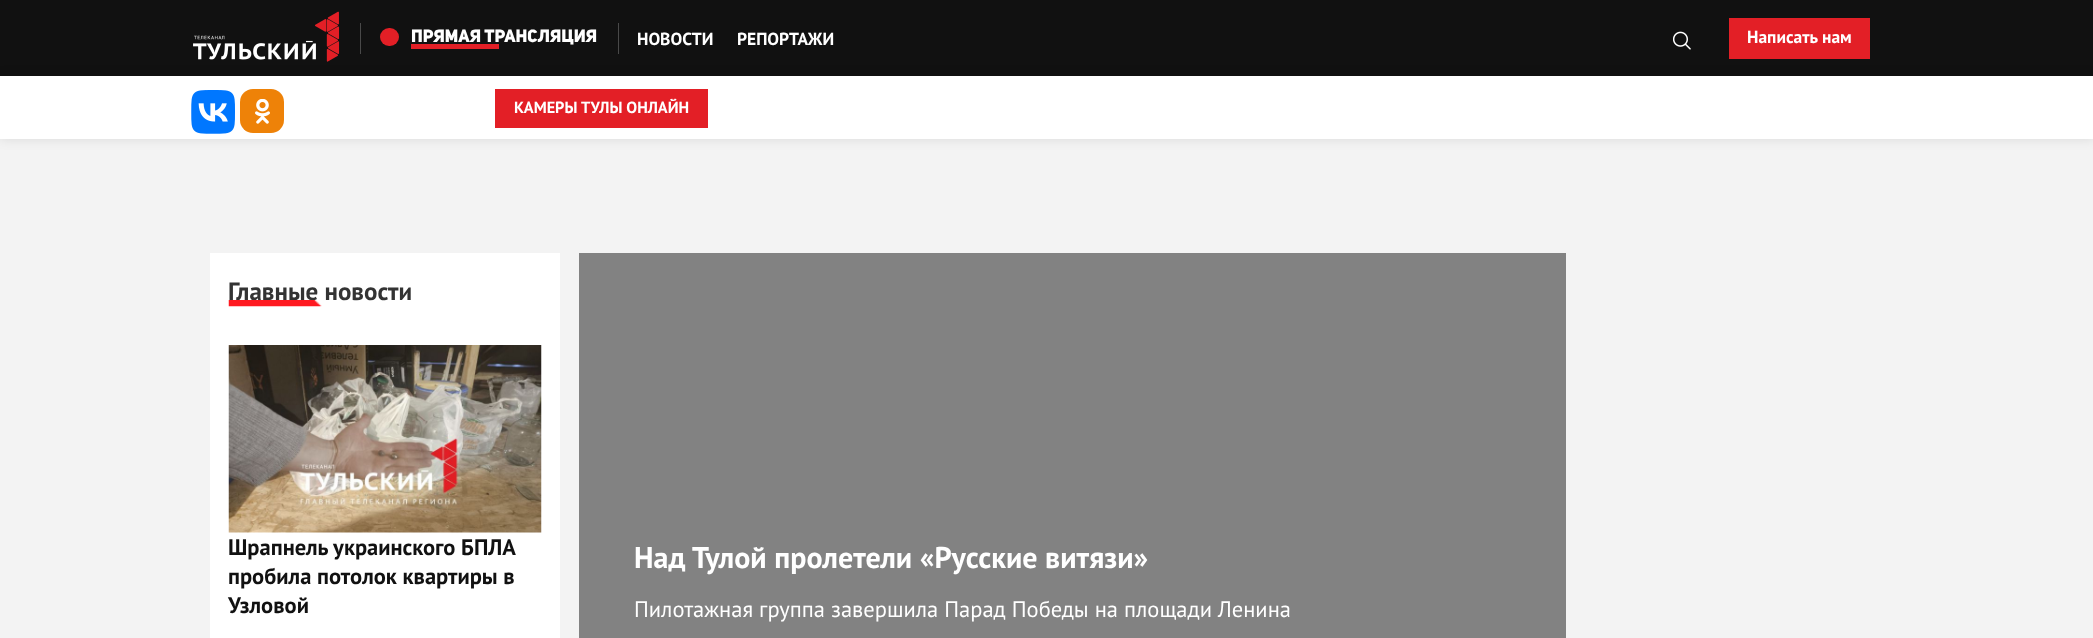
<!DOCTYPE html>
<meta charset="utf-8">
<style>body { margin: 0 } canvas { display: block }</style>
<canvas id="canvas" width="2093" height="638"></canvas>
<img id="img1" src="img_01.png" hidden>
<img id="img2" src="img_02.png" hidden>
<img id="img3" src="img_03.png" hidden>
<img id="img4" src="img_04.png" hidden>
<img id="img5" src="img_06.png" hidden>
<img id="img6" src="img_05.png" hidden>
<script>
window.onload = function () {
	const canvas = document.getElementById("canvas");
	const ctx = canvas.getContext("2d");
	ctx.miterLimit = 4;
	ctx.fontKerning = "normal";
	function txt(s, x, y) {
		ctx.fillText(s, x, y);
	}
	function fill(x, y, w, h) {
		ctx.fillRect(x, y, w, h);
	}
	function round(x, y, w, h, r) {
		ctx.beginPath();
		ctx.roundRect(x, y, w, h, r);
		ctx.fill();
	}
	function img(id, x, y, w, h) {
		ctx.drawImage(document.getElementById(id), x, y, w, h);
	}

	ctx.fillStyle = "#F3F3F3";
	fill(0, 0, 2093, 638);
	ctx.fillStyle = "#111111";
	fill(0, 0, 2093, 76);
	ctx.fillStyle = "rgba(0, 0, 0, 0.1)";
	ctx.filter = "blur(6px)";
	ctx.beginPath();
	ctx.rect(0, 76, 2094, 63);
	ctx.fill();
	ctx.filter = "none";
	img("img1", 193, 11, 147, 51);
	ctx.fillStyle = "#494949";
	fill(360, 23, 1, 31);
	ctx.fillStyle = "#E31F26";
	round(380, 28, 19, 18, 9);
	fill(411, 44, 88, 5);
	ctx.fillStyle = "#494949";
	fill(618, 23, 1, 31);
	img("img2", 1673, 31, 18, 19);
	ctx.fillStyle = "#E31F26";
	fill(1729, 18, 141, 41);
	ctx.fillStyle = "#FFFFFF";
	fill(0, 76, 2093, 63);
	img("img3", 191, 90, 44, 44);
	ctx.fillStyle = "#EE8208";
	round(240, 89, 44, 44, 13);
	img("img4", 255, 99, 15, 25);
	ctx.fillStyle = "#E31F26";
	fill(495, 89, 213, 39);
	ctx.fillStyle = "#FFFFFF";
	fill(210, 253, 350, 385);
	img("img5", 228, 345, 314, 188);
	ctx.fillStyle = "#828282";
	fill(579, 253, 987, 385);
	ctx.font = "900 17.5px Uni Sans";
	ctx.fillStyle = "#FFFFFF";
	txt("ПРЯМАЯ ТРАНСЛЯЦИЯ", 411, 42);
	ctx.font = "bold 17.5px PT Sans";
	txt("НОВОСТИ", 637, 45);
	txt("РЕПОРТАЖИ", 737, 45);
	txt("Написать нам", 1747, 43);
	ctx.font = "bold 16.25px PT Sans";
	txt("КАМЕРЫ ТУЛЫ ОНЛАЙН", 514, 113);
	ctx.font = "bold 25px PT Sans";
	ctx.fillStyle = "#333333";
	txt("Главные новости", 228, 300);
	img("img6", 228, 300, 94, 7);
	ctx.font = "bold 22.5px PT Sans";
	ctx.fillStyle = "#111111";
	txt("Шрапнель украинского БПЛА", 228, 555);
	txt("пробила потолок квартиры в", 228, 584);
	txt("Узловой", 228, 613);
	ctx.font = "bold 30px PT Sans";
	ctx.fillStyle = "#FFFFFF";
	txt("Над Тулой пролетели «Русские витязи»", 634, 568);
	ctx.font = "22.5px PT Sans";
	txt("Пилотажная группа завершила Парад Победы на площади Ленина", 634, 617);
};
</script>
